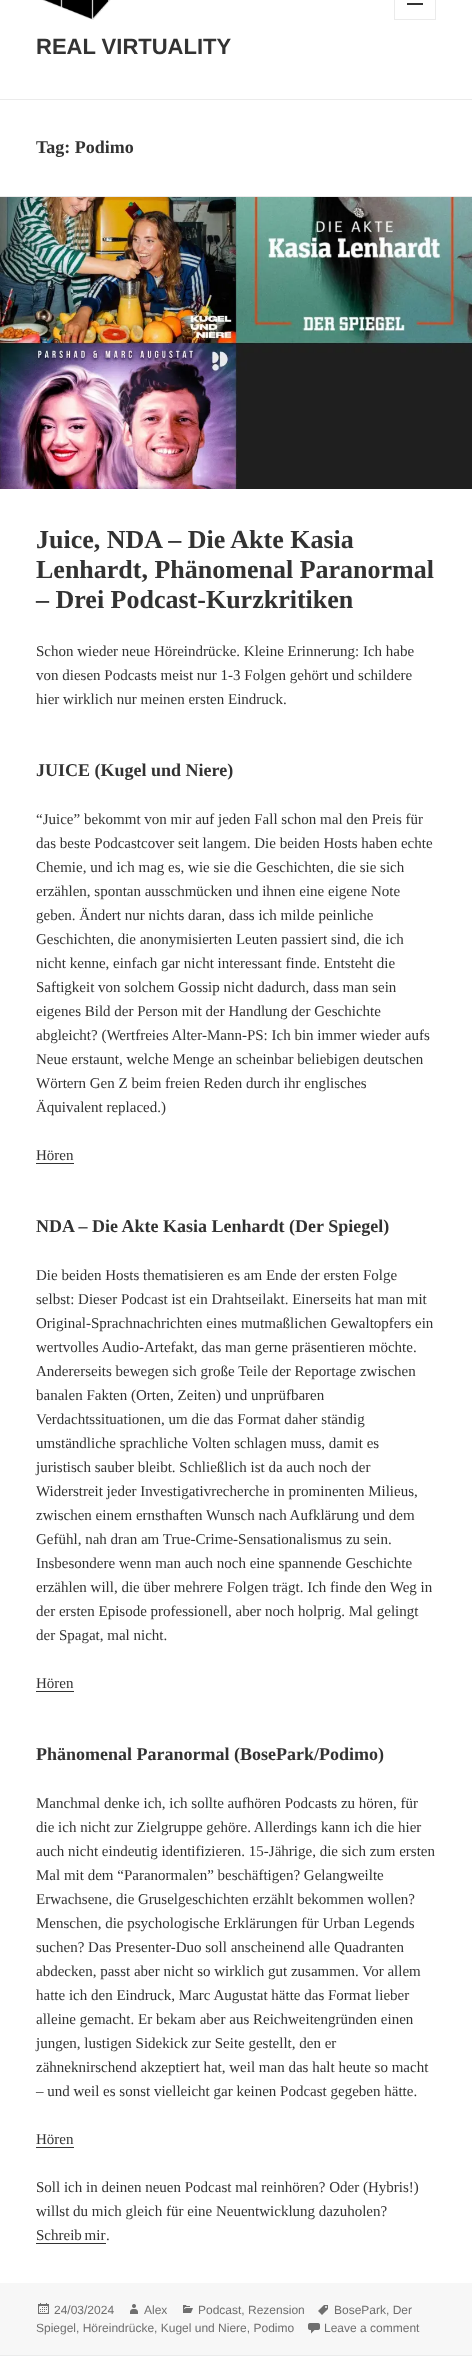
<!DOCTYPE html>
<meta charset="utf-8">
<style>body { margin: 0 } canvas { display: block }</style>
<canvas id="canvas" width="472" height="2360"></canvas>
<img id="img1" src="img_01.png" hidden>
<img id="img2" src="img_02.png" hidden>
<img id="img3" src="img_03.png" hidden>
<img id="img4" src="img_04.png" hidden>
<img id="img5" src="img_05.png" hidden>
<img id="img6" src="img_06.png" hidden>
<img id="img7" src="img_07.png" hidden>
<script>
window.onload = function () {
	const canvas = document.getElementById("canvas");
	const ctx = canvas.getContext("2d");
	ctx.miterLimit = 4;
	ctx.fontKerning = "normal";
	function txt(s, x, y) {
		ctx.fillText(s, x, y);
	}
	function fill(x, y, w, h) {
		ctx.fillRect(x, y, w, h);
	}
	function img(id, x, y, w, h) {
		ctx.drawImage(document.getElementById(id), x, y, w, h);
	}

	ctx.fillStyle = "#FFFFFF";
	fill(0, 0, 472, 2360);
	ctx.fillStyle = "#EBEBEB";
	fill(0, 99, 472, 1);
	img("img1", 41, 0, 70, 20);
	ctx.strokeStyle = "#EBEBEB";
	ctx.strokeRect(394.5, -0.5, 41, 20);
	ctx.fillStyle = "#333333";
	fill(407, 3, 16, 2);
	ctx.fillStyle = "#EBEBEB";
	fill(0, 196, 472, 1);
	img("img2", 0, 197, 472, 292);
	ctx.fillStyle = "#333333";
	fill(36, 1163, 38, 1);
	fill(36, 1691, 38, 1);
	fill(36, 2147, 38, 1);
	fill(36, 2243, 70, 1);
	ctx.fillStyle = "#F7F7F7";
	fill(0, 2283, 472, 72);
	img("img3", 318, 2305, 10, 10);
	img("img4", 38, 2303, 11, 11);
	img("img5", 130, 2304, 8, 10);
	img("img6", 183, 2305, 10, 8);
	img("img7", 308, 2323, 12, 11);
	ctx.fillStyle = "#EBEBEB";
	fill(0, 2355, 472, 1);
	ctx.font = "bold 22px Liberation Sans";
	ctx.fillStyle = "#333333";
	txt("REAL VIRTUALITY", 36, 54);
	ctx.font = "bold 18px Liberation Serif";
	txt("Tag: Podimo", 36, 153);
	ctx.font = "bold 26px Liberation Serif";
	txt("Juice, NDA – Die Akte Kasia", 36, 548);
	txt("Lenhardt, Phänomenal Paranormal", 36, 578);
	txt("– Drei Podcast-Kurzkritiken", 36, 608);
	ctx.font = "15px Liberation Serif";
	txt("Schon wieder neue Höreindrücke. Kleine Erinnerung: Ich habe", 36, 656);
	txt("von diesen Podcasts meist nur 1-3 Folgen gehört und schildere", 36, 680);
	txt("hier wirklich nur meinen ersten Eindruck.", 36, 704);
	ctx.font = "bold 18px Liberation Serif";
	txt("JUICE (Kugel und Niere)", 36, 776);
	ctx.font = "15px Liberation Serif";
	txt("“Juice” bekommt von mir auf jeden Fall schon mal den Preis für", 36, 824);
	txt("das beste Podcastcover seit langem. Die beiden Hosts haben echte", 36, 848);
	txt("Chemie, und ich mag es, wie sie die Geschichten, die sie sich", 36, 872);
	txt("erzählen, spontan ausschmücken und ihnen eine eigene Note", 36, 896);
	txt("geben. Ändert nur nichts daran, dass ich milde peinliche", 36, 920);
	txt("Geschichten, die anonymisierten Leuten passiert sind, die ich", 36, 944);
	txt("nicht kenne, einfach gar nicht interessant finde. Entsteht die", 36, 968);
	txt("Saftigkeit von solchem Gossip nicht dadurch, dass man sein", 36, 992);
	txt("eigenes Bild der Person mit der Handlung der Geschichte", 36, 1016);
	txt("abgleicht? (Wertfreies Alter-Mann-PS: Ich bin immer wieder aufs", 36, 1040);
	txt("Neue erstaunt, welche Menge an scheinbar beliebigen deutschen", 36, 1064);
	txt("Wörtern Gen Z beim freien Reden durch ihr englisches", 36, 1088);
	txt("Äquivalent replaced.)", 36, 1112);
	txt("Hören", 36, 1160);
	ctx.font = "bold 18px Liberation Serif";
	txt("NDA – Die Akte Kasia Lenhardt (Der Spiegel)", 36, 1232);
	ctx.font = "15px Liberation Serif";
	txt("Die beiden Hosts thematisieren es am Ende der ersten Folge", 36, 1280);
	txt("selbst: Dieser Podcast ist ein Drahtseilakt. Einerseits hat man mit", 36, 1304);
	txt("Original-Sprachnachrichten eines mutmaßlichen Gewaltopfers ein", 36, 1328);
	txt("wertvolles Audio-Artefakt, das man gerne präsentieren möchte.", 36, 1352);
	txt("Andererseits bewegen sich große Teile der Reportage zwischen", 36, 1376);
	txt("banalen Fakten (Orten, Zeiten) und unprüfbaren", 36, 1400);
	txt("Verdachtssituationen, um die das Format daher ständig", 36, 1424);
	txt("umständliche sprachliche Volten schlagen muss, damit es", 36, 1448);
	txt("juristisch sauber bleibt. Schließlich ist da auch noch der", 36, 1472);
	txt("Widerstreit jeder Investigativrecherche in prominenten Milieus,", 36, 1496);
	txt("zwischen einem ernsthaften Wunsch nach Aufklärung und dem", 36, 1520);
	txt("Gefühl, nah dran am True-Crime-Sensationalismus zu sein.", 36, 1544);
	txt("Insbesondere wenn man auch noch eine spannende Geschichte", 36, 1568);
	txt("erzählen will, die über mehrere Folgen trägt. Ich finde den Weg in", 36, 1592);
	txt("der ersten Episode professionell, aber noch holprig. Mal gelingt", 36, 1616);
	txt("der Spagat, mal nicht.", 36, 1640);
	txt("Hören", 36, 1688);
	ctx.font = "bold 18px Liberation Serif";
	txt("Phänomenal Paranormal (BosePark/Podimo)", 36, 1760);
	ctx.font = "15px Liberation Serif";
	txt("Manchmal denke ich, ich sollte aufhören Podcasts zu hören, für", 36, 1808);
	txt("die ich nicht zur Zielgruppe gehöre. Allerdings kann ich die hier", 36, 1832);
	txt("auch nicht eindeutig identifizieren. 15-Jährige, die sich zum ersten", 36, 1856);
	txt("Mal mit dem “Paranormalen” beschäftigen? Gelangweilte", 36, 1880);
	txt("Erwachsene, die Gruselgeschichten erzählt bekommen wollen?", 36, 1904);
	txt("Menschen, die psychologische Erklärungen für Urban Legends", 36, 1928);
	txt("suchen? Das Presenter-Duo soll anscheinend alle Quadranten", 36, 1952);
	txt("abdecken, passt aber nicht so wirklich gut zusammen. Vor allem", 36, 1976);
	txt("hatte ich den Eindruck, Marc Augustat hätte das Format lieber", 36, 2000);
	txt("alleine gemacht. Er bekam aber aus Reichweitengründen einen", 36, 2024);
	txt("jungen, lustigen Sidekick zur Seite gestellt, den er", 36, 2048);
	txt("zähneknirschend akzeptiert hat, weil man das halt heute so macht", 36, 2072);
	txt("– und weil es sonst vielleicht gar keinen Podcast gegeben hätte.", 36, 2096);
	txt("Hören", 36, 2144);
	txt("Soll ich in deinen neuen Podcast mal reinhören? Oder (Hybris!)", 36, 2192);
	txt("willst du mich gleich für eine Neuentwicklung dazuholen?", 36, 2216);
	ctx.wordSpacing = "-1px";
	txt("Schreib mir", 36, 2240);
	ctx.wordSpacing = "0px";
	txt(".", 106, 2240);
	ctx.font = "12px Liberation Sans";
	ctx.fillStyle = "#6E6E6E";
	txt("BosePark, Der", 334, 2314);
	txt("Spiegel, Höreindrücke, Kugel und Niere, Podimo", 36, 2332);
	txt("24/03/2024", 54, 2314);
	txt("Alex", 144, 2314);
	txt("Podcast, Rezension", 198, 2314);
	txt("Leave a comment", 324, 2332);
};
</script>
